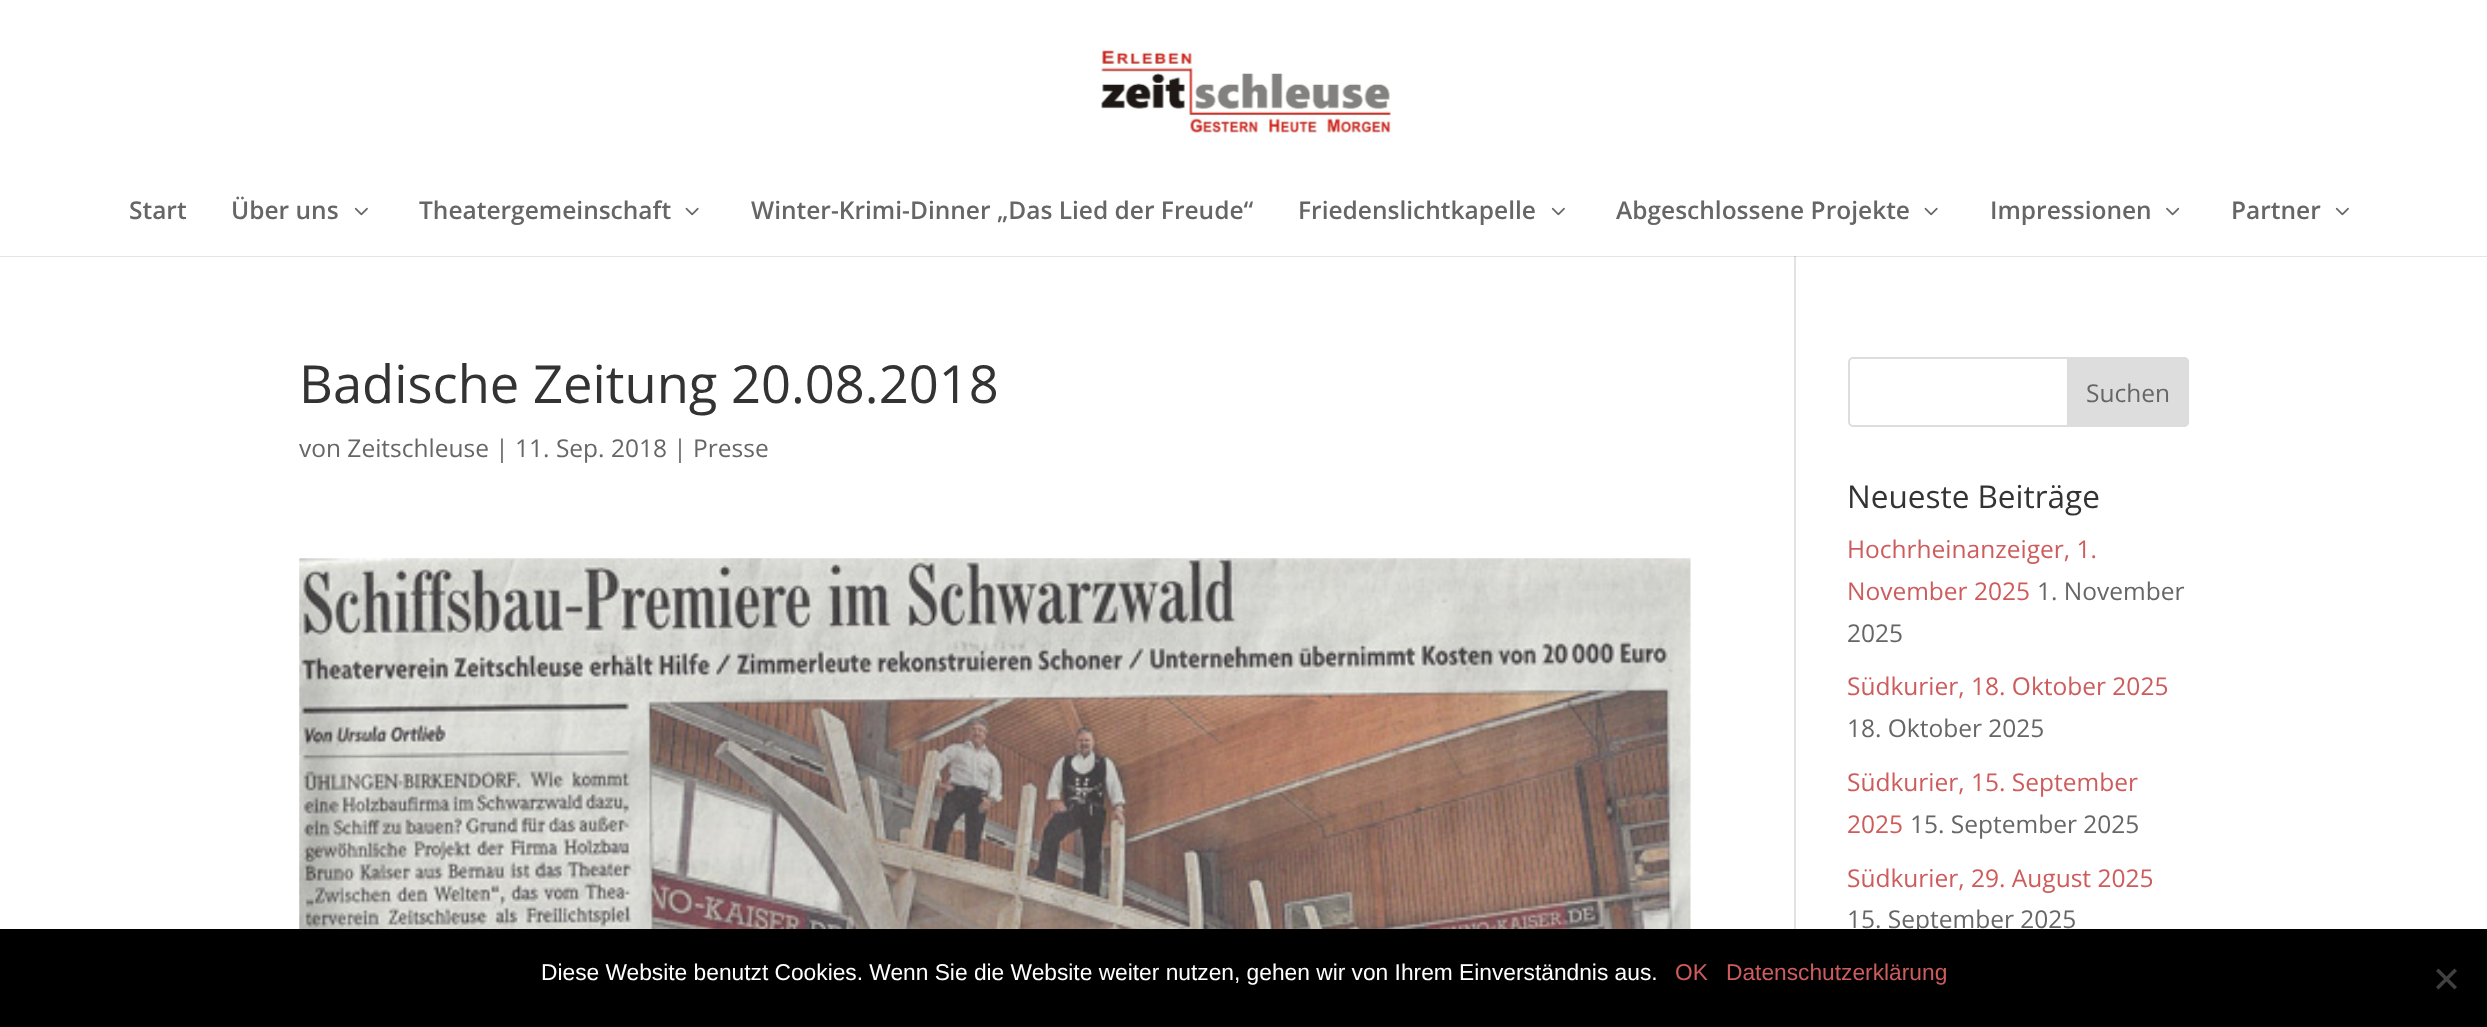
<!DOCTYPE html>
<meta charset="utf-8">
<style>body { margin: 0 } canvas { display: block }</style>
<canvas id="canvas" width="2487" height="1027"></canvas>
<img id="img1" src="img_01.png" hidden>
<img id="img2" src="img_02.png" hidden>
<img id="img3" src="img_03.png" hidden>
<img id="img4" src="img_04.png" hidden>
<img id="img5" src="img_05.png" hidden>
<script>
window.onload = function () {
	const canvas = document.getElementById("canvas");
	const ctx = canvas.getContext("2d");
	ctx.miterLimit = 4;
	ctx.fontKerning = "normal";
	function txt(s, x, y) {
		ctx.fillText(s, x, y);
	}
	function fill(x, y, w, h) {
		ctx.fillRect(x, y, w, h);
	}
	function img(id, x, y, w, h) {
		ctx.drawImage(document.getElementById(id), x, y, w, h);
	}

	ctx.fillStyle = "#FFFFFF";
	fill(0, 0, 2487, 1027);
	ctx.fillStyle = "#E2E2E2";
	fill(1794, 256, 2, 673);
	ctx.fillStyle = "rgba(0, 0, 0, 0.1)";
	ctx.beginPath();
	ctx.moveTo(0, 256);
	ctx.lineTo(0, 257);
	ctx.lineTo(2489, 257);
	ctx.lineTo(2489, 2);
	ctx.lineTo(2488, 2);
	ctx.lineTo(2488, 256);
	ctx.closePath();
	ctx.fill();
	img("img1", 1101, 50, 291, 83);
	img("img2", 354, 207, 14, 9);
	img("img3", 685, 207, 14, 9);
	img("img2", 1551, 207, 14, 9);
	img("img3", 1924, 207, 14, 9);
	img("img4", 2166, 207, 14, 9);
	img("img2", 2335, 207, 14, 9);
	img("img5", 299, 558, 1392, 371);
	ctx.beginPath();
	ctx.roundRect(1849, 358, 339, 68, 4);
	ctx.strokeStyle = "#DDDDDD";
	ctx.lineWidth = 2;
	ctx.stroke();
	ctx.fillStyle = "#DDDDDD";
	ctx.beginPath();
	ctx.roundRect(2068, 358, 120, 68, [0, 4, 4, 0]);
	ctx.fill();
	ctx.stroke();
	ctx.font = "600 24.5px Open Sans";
	ctx.fillStyle = "#666666";
	txt("Start", 129, 219);
	txt("Über uns", 231, 219);
	txt("Theatergemeinschaft", 419, 219);
	txt("Winter-Krimi-Dinner „Das Lied der Freude“", 751, 219);
	txt("Friedenslichtkapelle", 1298, 219);
	txt("Abgeschlossene Projekte", 1616, 219);
	txt("Impressionen", 1990, 219);
	txt("Partner", 2231, 219);
	ctx.font = "52.5px Open Sans";
	ctx.fillStyle = "#333333";
	txt("Badische Zeitung 20.08.2018", 299, 403);
	ctx.font = "24.5px Open Sans";
	ctx.fillStyle = "#666666";
	txt("von Zeitschleuse | 11. Sep. 2018 | Presse", 299, 457);
	txt("Suchen", 2086, 402);
	ctx.font = "31.5px Open Sans";
	ctx.fillStyle = "#333333";
	txt("Neueste Beiträge", 1847, 508);
	ctx.font = "24.5px Open Sans";
	ctx.fillStyle = "#CD5C5C";
	txt("Hochrheinanzeiger, 1.", 1847, 558);
	txt("November 2025", 1847, 600);
	ctx.fillStyle = "#666666";
	txt("1. November", 2037, 600);
	txt("2025", 1847, 642);
	ctx.fillStyle = "#CD5C5C";
	txt("Südkurier, 18. Oktober 2025", 1847, 695);
	ctx.fillStyle = "#666666";
	txt("18. Oktober 2025", 1847, 737);
	ctx.fillStyle = "#CD5C5C";
	txt("Südkurier, 15. September", 1847, 791);
	txt("2025", 1847, 833);
	ctx.fillStyle = "#666666";
	txt("15. September 2025", 1910, 833);
	ctx.fillStyle = "#CD5C5C";
	txt("Südkurier, 29. August 2025", 1847, 887);
	ctx.fillStyle = "#666666";
	txt("15. September 2025", 1847, 928);
	ctx.fillStyle = "#000000";
	fill(0, 929, 2487, 98);
	ctx.font = "22.75px Liberation Sans";
	ctx.fillStyle = "#FFFFFF";
	txt("Diese Website benutzt Cookies. Wenn Sie die Website weiter nutzen, gehen wir von Ihrem Einverständnis aus.", 541, 980);
	ctx.fillStyle = "#CD5C5C";
	txt("OK", 1675, 980);
	txt("Datenschutzerklärung", 1726, 980);
	ctx.fillStyle = "#404040";
	ctx.beginPath();
	ctx.moveTo(2454.5, 968.5);
	ctx.lineTo(2457, 971);
	ctx.lineTo(2438.5, 989.5);
	ctx.lineTo(2436, 987);
	ctx.closePath();
	ctx.fill();
	ctx.beginPath();
	ctx.moveTo(2436, 971);
	ctx.lineTo(2438.5, 968.5);
	ctx.lineTo(2457, 987);
	ctx.lineTo(2454.5, 989.5);
	ctx.closePath();
	ctx.fill();
};
</script>
